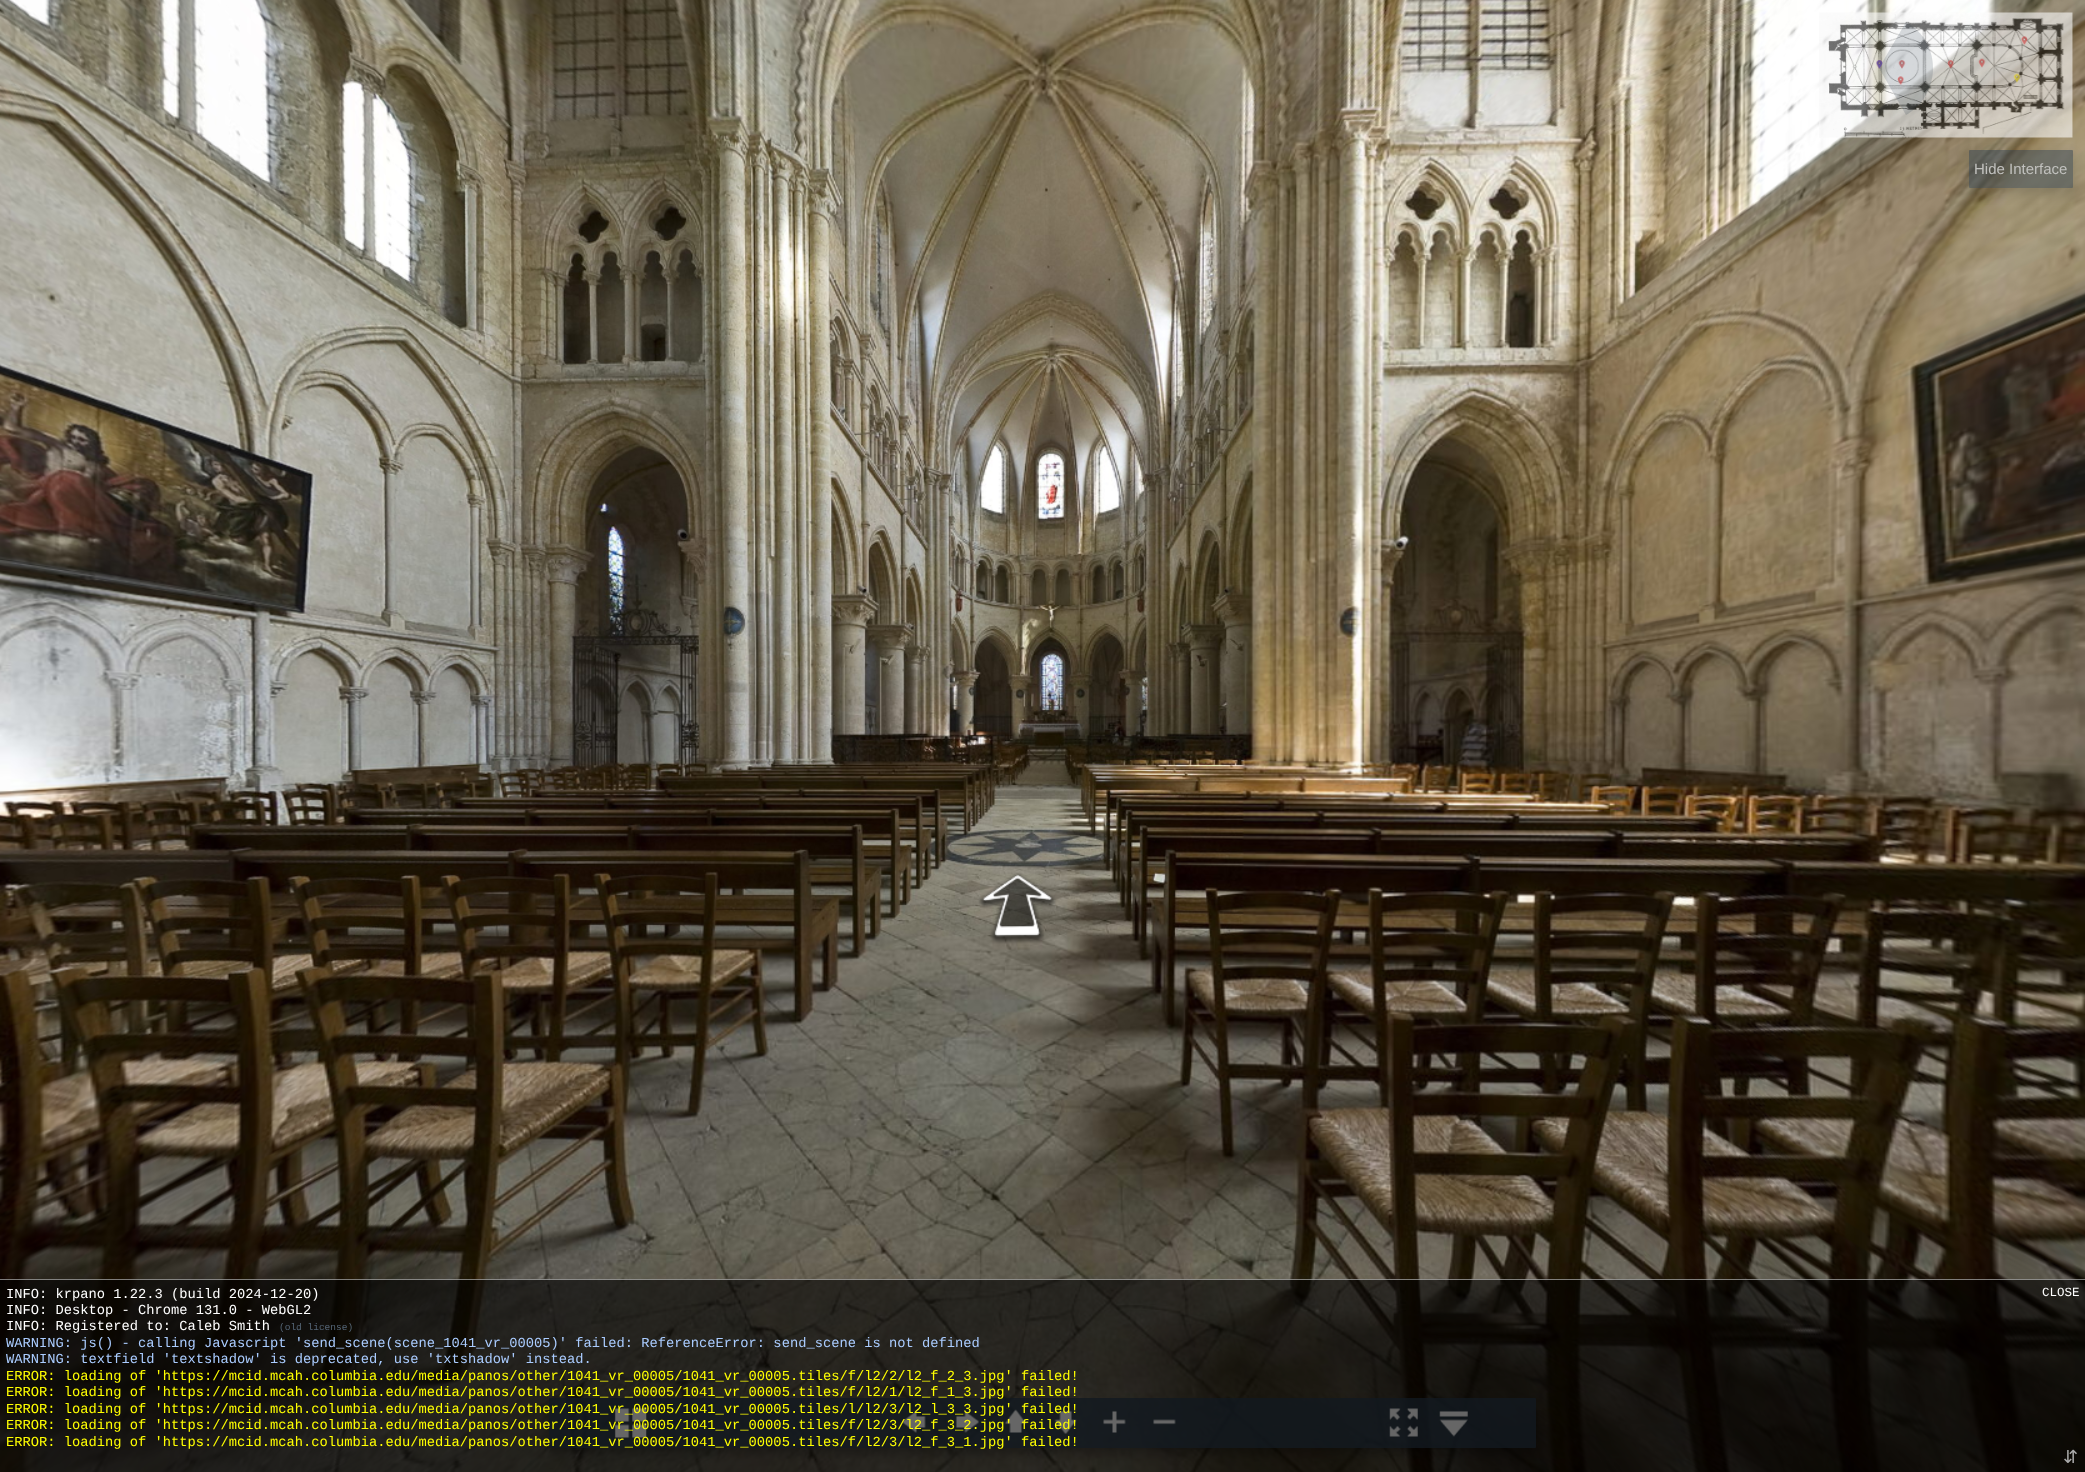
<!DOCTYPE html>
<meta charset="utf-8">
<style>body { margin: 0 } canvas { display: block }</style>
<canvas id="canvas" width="2085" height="1472"></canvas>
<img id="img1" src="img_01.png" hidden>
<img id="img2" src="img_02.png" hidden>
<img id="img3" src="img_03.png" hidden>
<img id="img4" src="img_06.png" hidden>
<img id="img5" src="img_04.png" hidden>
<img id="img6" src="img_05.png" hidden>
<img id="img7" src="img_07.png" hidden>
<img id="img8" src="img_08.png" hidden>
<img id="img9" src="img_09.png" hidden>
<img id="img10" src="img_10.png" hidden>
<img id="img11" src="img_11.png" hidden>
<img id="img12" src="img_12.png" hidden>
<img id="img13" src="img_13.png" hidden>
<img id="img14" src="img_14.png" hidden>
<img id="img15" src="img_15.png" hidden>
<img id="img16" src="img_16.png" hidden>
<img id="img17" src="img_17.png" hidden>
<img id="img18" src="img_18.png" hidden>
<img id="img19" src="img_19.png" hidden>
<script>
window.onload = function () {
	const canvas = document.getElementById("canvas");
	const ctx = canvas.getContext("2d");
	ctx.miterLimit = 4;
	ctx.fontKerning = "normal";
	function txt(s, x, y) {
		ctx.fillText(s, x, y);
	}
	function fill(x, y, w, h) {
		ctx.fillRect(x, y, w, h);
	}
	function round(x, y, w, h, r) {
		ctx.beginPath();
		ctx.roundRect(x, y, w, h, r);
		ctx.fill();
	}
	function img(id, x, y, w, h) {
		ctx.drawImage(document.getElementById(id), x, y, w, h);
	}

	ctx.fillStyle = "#FFFFFF";
	fill(0, 0, 2085, 1472);
	img("img1", 0, 0, 2085, 1472);
	ctx.save();
	ctx.beginPath();
	ctx.moveTo(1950, 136);
	ctx.lineTo(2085, 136);
	ctx.lineTo(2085, 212);
	ctx.lineTo(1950, 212);
	ctx.closePath();
	ctx.moveTo(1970, 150);
	ctx.lineTo(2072, 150);
	ctx.bezierCurveTo(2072.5, 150, 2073, 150.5, 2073, 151);
	ctx.lineTo(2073, 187);
	ctx.bezierCurveTo(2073, 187.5, 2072.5, 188, 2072, 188);
	ctx.lineTo(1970, 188);
	ctx.bezierCurveTo(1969.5, 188, 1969, 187.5, 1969, 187);
	ctx.lineTo(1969, 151);
	ctx.bezierCurveTo(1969, 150.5, 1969.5, 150, 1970, 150);
	ctx.closePath();
	ctx.clip("evenodd");
	ctx.fillStyle = "rgba(0, 0, 0, 0.18)";
	ctx.filter = "blur(6px)";
	ctx.beginPath();
	ctx.roundRect(1969, 155, 104, 38, 1);
	ctx.fill();
	ctx.filter = "none";
	ctx.restore();
	img("img2", 1819, 12, 254, 126);
	img("img3", 1876, 60, 7, 9);
	img("img4", 1898, 60, 8, 9);
	ctx.fillStyle = "rgba(45, 62, 80, 0.18)";
	ctx.beginPath();
	ctx.moveTo(1879, 68);
	ctx.lineTo(1906, 22);
	ctx.bezierCurveTo(1942, 42, 1942, 94, 1906, 115);
	ctx.closePath();
	ctx.fill();
	img("img5", 1876, 60, 7, 9);
	img("img6", 2021, 36, 7, 9);
	img("img7", 1947, 60, 7, 9);
	img("img8", 1978, 58, 8, 10);
	img("img9", 1897, 76, 7, 9);
	img("img10", 2013, 73, 8, 10);
	ctx.fillStyle = "rgba(45, 62, 80, 0.48)";
	round(1969, 150, 104, 38, 1);
	ctx.fillStyle = "rgba(45, 62, 80, 0.8)";
	ctx.beginPath();
	ctx.roundRect(549, 1398, 987, 12, [1, 1, 0, 0]);
	ctx.fill();
	ctx.save();
	ctx.beginPath();
	ctx.rect(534, 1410, 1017, 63);
	ctx.clip();
	ctx.beginPath();
	ctx.moveTo(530, 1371);
	ctx.lineTo(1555, 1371);
	ctx.lineTo(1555, 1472);
	ctx.lineTo(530, 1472);
	ctx.closePath();
	ctx.moveTo(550, 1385);
	ctx.lineTo(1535, 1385);
	ctx.bezierCurveTo(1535.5, 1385, 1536, 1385.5, 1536, 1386);
	ctx.lineTo(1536, 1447);
	ctx.bezierCurveTo(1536, 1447.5, 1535.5, 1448, 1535, 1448);
	ctx.lineTo(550, 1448);
	ctx.bezierCurveTo(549.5, 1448, 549, 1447.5, 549, 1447);
	ctx.lineTo(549, 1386);
	ctx.bezierCurveTo(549, 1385.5, 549.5, 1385, 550, 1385);
	ctx.closePath();
	ctx.clip("evenodd");
	ctx.fillStyle = "rgba(0, 0, 0, 0.3)";
	ctx.filter = "blur(6px)";
	ctx.beginPath();
	ctx.roundRect(549, 1390, 987, 63, 1);
	ctx.fill();
	ctx.filter = "none";
	ctx.restore();
	ctx.beginPath();
	ctx.roundRect(549, 1410, 987, 38, [0, 0, 1, 1]);
	ctx.fill();
	img("img11", 614, 1408, 33, 30);
	img("img12", 902, 1410, 24, 23);
	img("img13", 955, 1411, 24, 22);
	img("img14", 1004, 1409, 23, 24);
	img("img15", 1054, 1410, 23, 24);
	img("img16", 1103, 1410, 23, 23);
	img("img17", 1153, 1419, 23, 6);
	img("img18", 1389, 1408, 29, 29);
	img("img19", 1439, 1410, 29, 27);
	ctx.fillStyle = "rgba(0, 0, 0, 0.6)";
	fill(0, 1279, 2085, 193);
	ctx.fillStyle = "rgba(255, 255, 255, 0.48)";
	fill(0, 1279, 2085, 1);
	ctx.font = "15px Liberation Sans";
	ctx.fillStyle = "#C1C1BE";
	txt("Hide Interface", 1974, 174);
	ctx.font = "13.75px Liberation Mono";
	ctx.fillStyle = "#FFFFFF";
	txt("INFO: krpano 1.22.3 (build 2024-12-20)", 6, 1298);
	txt("INFO: Desktop - Chrome 131.0 - WebGL2", 6, 1314);
	txt("INFO: Registered to: Caleb Smith", 6, 1330);
	ctx.font = "9.5px Liberation Mono";
	ctx.fillStyle = "#556677";
	txt("(old license)", 279, 1330);
	ctx.font = "13.75px Liberation Mono";
	ctx.fillStyle = "#AACCFF";
	txt("WARNING: js() - calling Javascript 'send_scene(scene_1041_vr_00005)' failed: ReferenceError: send_scene is not defined", 6, 1347);
	txt("WARNING: textfield 'textshadow' is deprecated, use 'txtshadow' instead.", 6, 1363);
	ctx.fillStyle = "#FFFF00";
	txt("ERROR: loading of 'https://mcid.mcah.columbia.edu/media/panos/other/1041_vr_00005/1041_vr_00005.tiles/f/l2/2/l2_f_2_3.jpg' failed!", 6, 1380);
	txt("ERROR: loading of 'https://mcid.mcah.columbia.edu/media/panos/other/1041_vr_00005/1041_vr_00005.tiles/f/l2/1/l2_f_1_3.jpg' failed!", 6, 1396);
	txt("ERROR: loading of 'https://mcid.mcah.columbia.edu/media/panos/other/1041_vr_00005/1041_vr_00005.tiles/l/l2/3/l2_l_3_3.jpg' failed!", 6, 1413);
	txt("ERROR: loading of 'https://mcid.mcah.columbia.edu/media/panos/other/1041_vr_00005/1041_vr_00005.tiles/f/l2/3/l2_f_3_2.jpg' failed!", 6, 1429);
	txt("ERROR: loading of 'https://mcid.mcah.columbia.edu/media/panos/other/1041_vr_00005/1041_vr_00005.tiles/f/l2/3/l2_f_3_1.jpg' failed!", 6, 1446);
	ctx.font = "12.5px Liberation Mono";
	ctx.fillStyle = "#FFFFFF";
	txt("CLOSE", 2042, 1296);
	ctx.font = "18px DejaVu Sans";
	ctx.fillStyle = "#AAAAAA";
	txt("⇵", 2063, 1463);
};
</script>
